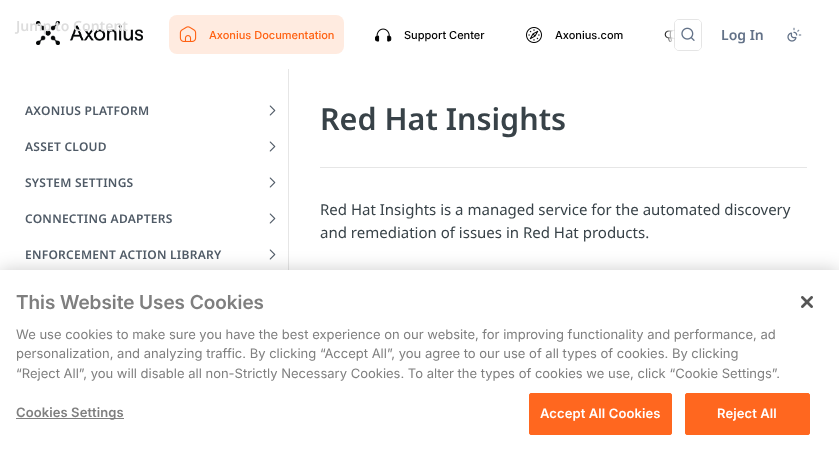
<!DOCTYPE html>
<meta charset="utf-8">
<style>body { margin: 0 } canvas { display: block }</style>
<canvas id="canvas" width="839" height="455"></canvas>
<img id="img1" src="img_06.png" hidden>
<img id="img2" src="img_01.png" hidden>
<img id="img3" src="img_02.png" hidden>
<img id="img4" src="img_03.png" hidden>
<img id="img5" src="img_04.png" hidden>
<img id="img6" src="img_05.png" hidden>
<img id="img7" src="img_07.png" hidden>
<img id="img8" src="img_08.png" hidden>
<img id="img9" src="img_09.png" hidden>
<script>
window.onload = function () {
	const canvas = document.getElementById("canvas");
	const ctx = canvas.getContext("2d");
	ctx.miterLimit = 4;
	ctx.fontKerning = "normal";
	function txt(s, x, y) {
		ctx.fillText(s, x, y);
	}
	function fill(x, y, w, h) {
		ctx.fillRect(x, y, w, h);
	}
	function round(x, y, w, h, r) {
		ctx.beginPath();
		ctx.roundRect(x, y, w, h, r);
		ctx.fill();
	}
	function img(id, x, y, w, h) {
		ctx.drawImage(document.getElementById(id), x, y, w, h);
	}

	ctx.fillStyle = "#FFFFFF";
	fill(0, 0, 839, 455);
	img("img1", 664, 29, 11, 13);
	ctx.save();
	ctx.beginPath();
	ctx.rect(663, 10, 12, 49);
	ctx.clip();
	ctx.filter = "blur(3px)";
	ctx.beginPath();
	ctx.rect(669, 16, 24, 37);
	ctx.fill();
	ctx.filter = "none";
	ctx.restore();
	ctx.beginPath();
	ctx.roundRect(674.5, 19.5, 27, 31, 4.5);
	ctx.strokeStyle = "rgba(0, 0, 0, 0.1)";
	ctx.stroke();
	round(675, 20, 26, 30, 4);
	img("img2", 681, 27, 14, 14);
	img("img3", 36, 21, 107, 24);
	ctx.fillStyle = "#FFEBE0";
	round(169, 15, 175, 39, 8);
	img("img4", 179, 26, 18, 16);
	img("img5", 375, 28, 17, 14);
	img("img6", 526, 27, 16, 16);
	img("img7", 787, 27, 15, 15);
	ctx.fillStyle = "#E6E6E6";
	fill(288, 69, 1, 201);
	img("img8", 269, 105, 7, 11);
	img("img8", 269, 141, 7, 11);
	img("img8", 269, 177, 7, 11);
	img("img8", 269, 213, 7, 11);
	img("img8", 269, 249, 7, 11);
	fill(320, 167, 487, 1);
	ctx.fillStyle = "rgba(0, 0, 0, 0.2)";
	ctx.filter = "blur(9px)";
	ctx.beginPath();
	ctx.rect(0, 270, 839, 185);
	ctx.fill();
	ctx.filter = "none";
	ctx.fillStyle = "#FFFFFF";
	fill(0, 270, 839, 185);
	ctx.fillStyle = "#7F7F7F";
	fill(16, 418, 108, 1);
	ctx.fillStyle = "#FF671F";
	ctx.beginPath();
	ctx.roundRect(529.5, 393.5, 142, 41, 1.5);
	ctx.fill();
	ctx.strokeStyle = "#FF671F";
	ctx.stroke();
	ctx.beginPath();
	ctx.roundRect(685.5, 393.5, 124, 41, 1.5);
	ctx.fill();
	ctx.stroke();
	img("img9", 801, 296, 12, 12);
	ctx.font = "600 14px Noto Sans";
	ctx.fillStyle = "#DDDDDD";
	txt("Jump to Content", 16, 31);
	ctx.font = "500 11px Inter";
	ctx.fillStyle = "#FF6112";
	txt("Axonius Documentation", 209, 39);
	ctx.fillStyle = "#000000";
	txt("Support Center", 404, 39);
	txt("Axonius.com", 555, 39);
	ctx.font = "600 14px Noto Sans";
	ctx.fillStyle = "#637288";
	txt("Log In", 721, 40);
	ctx.letterSpacing = "0.25px";
	ctx.font = "600 12px Noto Sans";
	ctx.fillStyle = "#4F5A66";
	txt("AXONIUS PLATFORM", 25, 115);
	txt("ASSET CLOUD", 25, 151);
	txt("SYSTEM SETTINGS", 25, 187);
	txt("CONNECTING ADAPTERS", 25, 223);
	txt("ENFORCEMENT ACTION LIBRARY", 25, 259);
	ctx.letterSpacing = "0px";
	ctx.font = "600 30.5px Noto Sans";
	ctx.fillStyle = "#384248";
	txt("Red Hat Insights", 320, 130);
	ctx.font = "15px Noto Sans";
	txt("Red Hat Insights is a managed service for the automated discovery", 320, 215);
	txt("and remediation of issues in Red Hat products.", 320, 238);
	ctx.font = "600 19.25px Inter";
	ctx.fillStyle = "#7F7F7F";
	txt("This Website Uses Cookies", 16, 309);
	ctx.font = "13px Inter";
	txt("We use cookies to make sure you have the best experience on our website, for improving functionality and performance, ad", 16, 339);
	txt("personalization, and analyzing traffic. By clicking “Accept All”, you agree to our use of all types of cookies. By clicking", 16, 358);
	txt("“Reject All”, you will disable all non-Strictly Necessary Cookies. To alter the types of cookies we use, click “Cookie Settings”.", 16, 378);
	ctx.letterSpacing = "0.1px";
	ctx.font = "600 13px 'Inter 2'";
	txt("Cookies Settings", 16, 417);
	ctx.fillStyle = "#FFFFFF";
	txt("Accept All Cookies", 540, 418);
	txt("Reject All", 717, 418);
};
</script>
